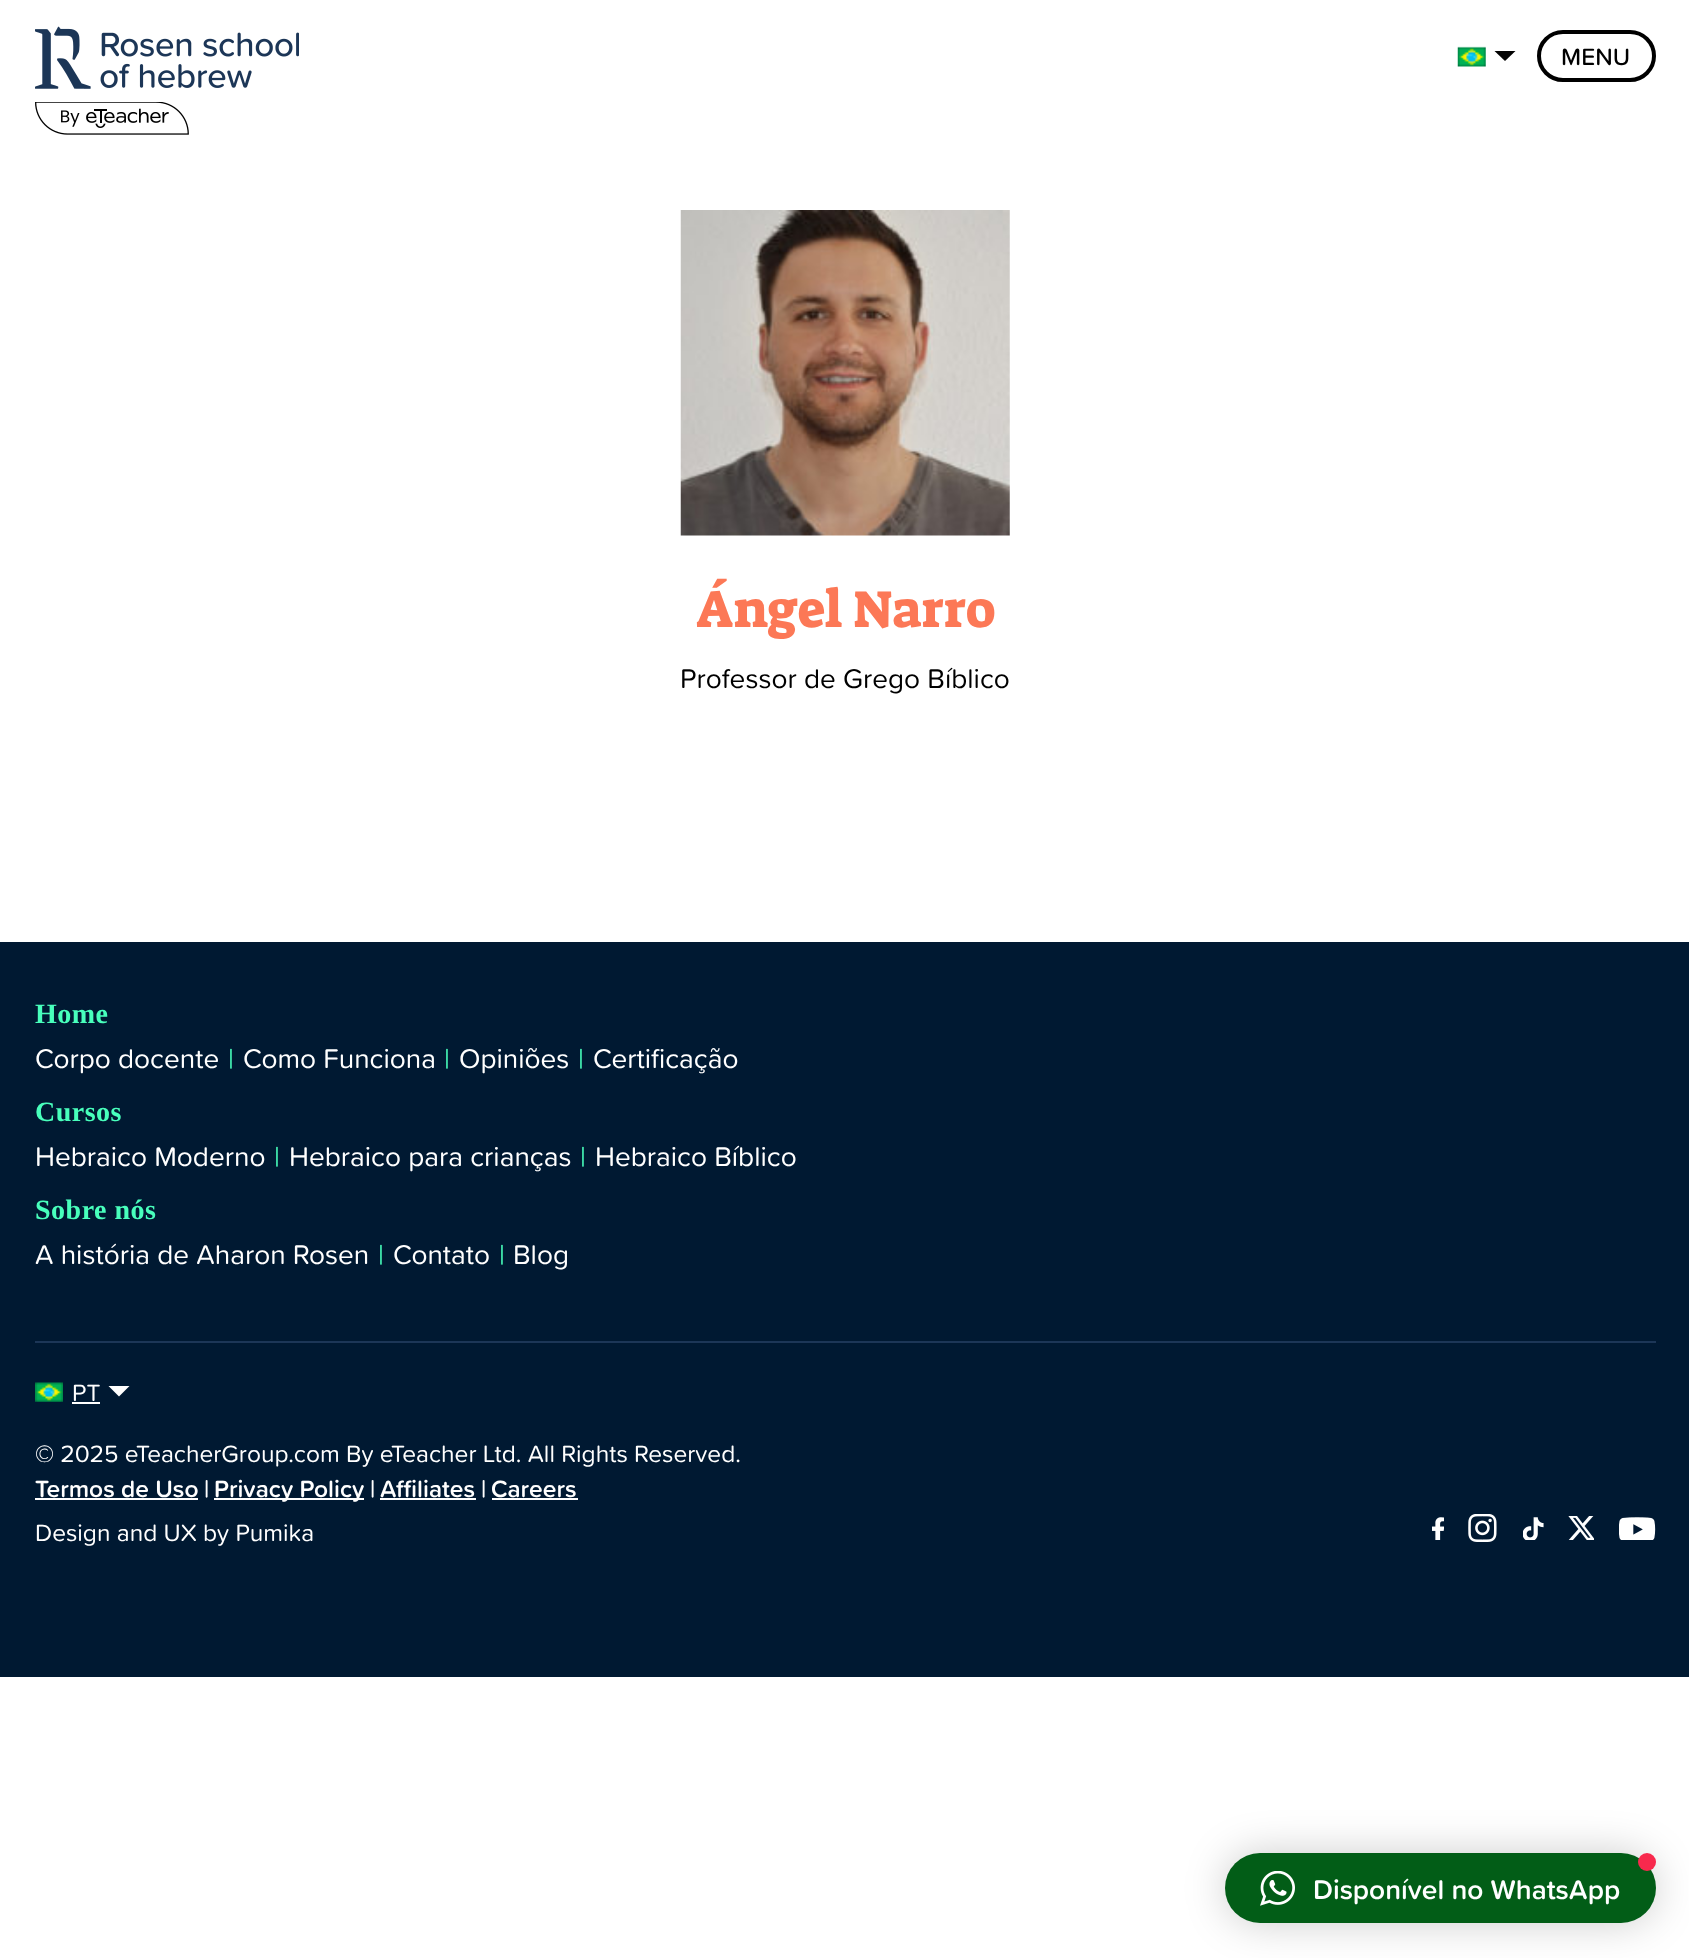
<!DOCTYPE html>
<meta charset="utf-8">
<style>body { margin: 0 } canvas { display: block }</style>
<canvas id="canvas" width="1689" height="1958"></canvas>
<img id="img1" src="img_01.png" hidden>
<img id="img2" src="img_02.png" hidden>
<img id="img3" src="img_03.png" hidden>
<img id="img4" src="img_04.png" hidden>
<img id="img5" src="img_05.png" hidden>
<img id="img6" src="img_06.png" hidden>
<img id="img7" src="img_07.png" hidden>
<img id="img8" src="img_08.png" hidden>
<img id="img9" src="img_09.png" hidden>
<img id="img10" src="img_10.png" hidden>
<img id="img11" src="img_11.png" hidden>
<script>
window.onload = function () {
	const canvas = document.getElementById("canvas");
	const ctx = canvas.getContext("2d");
	ctx.miterLimit = 4;
	ctx.fontKerning = "normal";
	function txt(s, x, y) {
		ctx.fillText(s, x, y);
	}
	function fill(x, y, w, h) {
		ctx.fillRect(x, y, w, h);
	}
	function round(x, y, w, h, r) {
		ctx.beginPath();
		ctx.roundRect(x, y, w, h, r);
		ctx.fill();
	}
	function img(id, x, y, w, h) {
		ctx.drawImage(document.getElementById(id), x, y, w, h);
	}

	ctx.fillStyle = "#FFFFFF";
	fill(0, 0, 1689, 1958);
	img("img1", 35, 26, 264, 63);
	img("img2", 35, 102, 154, 33);
	img("img3", 1457, 46, 29, 21);
	ctx.fillStyle = "#030303";
	ctx.beginPath();
	ctx.moveTo(1494.5, 51);
	ctx.lineTo(1515.5, 51);
	ctx.lineTo(1505, 61);
	ctx.closePath();
	ctx.fill();
	ctx.beginPath();
	ctx.roundRect(1539, 32, 115, 48, 24);
	ctx.strokeStyle = "#000000";
	ctx.lineWidth = 4;
	ctx.stroke();
	img("img4", 680, 210, 330, 326);
	ctx.fillStyle = "#001932";
	fill(0, 942, 1689, 735);
	ctx.fillStyle = "#1C3657";
	fill(35, 1341, 1621, 2);
	img("img5", 35, 1382, 28, 20);
	ctx.fillStyle = "#FFFFFF";
	fill(72, 1402, 28, 2);
	ctx.beginPath();
	ctx.moveTo(108.5, 1386);
	ctx.lineTo(129.5, 1386);
	ctx.lineTo(119, 1396.5);
	ctx.closePath();
	ctx.fill();
	fill(35, 1498, 163, 2);
	fill(214, 1498, 150, 2);
	fill(380, 1498, 96, 2);
	fill(492, 1498, 86, 2);
	img("img6", 1432, 1517, 12, 23);
	img("img7", 1468, 1514, 29, 28);
	img("img8", 1523, 1517, 21, 23);
	img("img9", 1568, 1516, 26, 24);
	img("img10", 1619, 1517, 37, 23);
	ctx.fillStyle = "rgba(0, 0, 0, 0.2)";
	ctx.filter = "blur(21px)";
	ctx.beginPath();
	ctx.roundRect(1225, 1853, 431, 70, 35);
	ctx.fill();
	ctx.filter = "none";
	ctx.fillStyle = "#025D17";
	round(1225, 1853, 431, 70, 35);
	ctx.fillStyle = "#F8294D";
	ctx.beginPath();
	ctx.arc(1647, 1862, 9, 0, Math.PI * 2);
	ctx.fill();
	img("img11", 1260, 1871, 35, 35);
	ctx.font = "500 24.5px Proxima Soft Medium";
	ctx.fillStyle = "#000000";
	txt("MENU", 1561, 65);
	ctx.font = "52.5px Suez One";
	ctx.fillStyle = "#FC7856";
	txt("Ángel Narro", 696, 627);
	ctx.font = "28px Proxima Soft";
	ctx.fillStyle = "#000000";
	txt("Professor de Grego Bíblico", 680, 688);
	ctx.letterSpacing = "0.5px";
	ctx.font = "bold 28px Liberation Serif";
	ctx.fillStyle = "#48FFBC";
	txt("Home", 35, 1023);
	ctx.letterSpacing = "0px";
	ctx.font = "28px Proxima Soft";
	ctx.fillStyle = "#FFFFFF";
	txt("Corpo docente", 35, 1068);
	ctx.fillStyle = "#48FFBC";
	txt("|", 228, 1068);
	ctx.fillStyle = "#FFFFFF";
	txt("Como Funciona", 243, 1068);
	ctx.fillStyle = "#48FFBC";
	txt("|", 444, 1068);
	ctx.fillStyle = "#FFFFFF";
	txt("Opiniões", 459, 1068);
	ctx.fillStyle = "#48FFBC";
	txt("|", 578, 1068);
	ctx.fillStyle = "#FFFFFF";
	txt("Certificação", 593, 1068);
	ctx.letterSpacing = "0.5px";
	ctx.font = "bold 28px Liberation Serif";
	ctx.fillStyle = "#48FFBC";
	txt("Cursos", 35, 1121);
	ctx.letterSpacing = "0px";
	ctx.font = "28px Proxima Soft";
	ctx.fillStyle = "#FFFFFF";
	txt("Hebraico Moderno", 35, 1166);
	ctx.fillStyle = "#48FFBC";
	txt("|", 274, 1166);
	ctx.fillStyle = "#FFFFFF";
	txt("Hebraico para crianças", 289, 1166);
	ctx.fillStyle = "#48FFBC";
	txt("|", 580, 1166);
	ctx.fillStyle = "#FFFFFF";
	txt("Hebraico Bíblico", 595, 1166);
	ctx.letterSpacing = "0.5px";
	ctx.font = "bold 28px Liberation Serif";
	ctx.fillStyle = "#48FFBC";
	txt("Sobre nós", 35, 1219);
	ctx.letterSpacing = "0px";
	ctx.font = "28px Proxima Soft";
	ctx.fillStyle = "#FFFFFF";
	txt("A história de Aharon Rosen", 35, 1264);
	ctx.fillStyle = "#48FFBC";
	txt("|", 378, 1264);
	ctx.fillStyle = "#FFFFFF";
	txt("Contato", 393, 1264);
	ctx.fillStyle = "#48FFBC";
	txt("|", 499, 1264);
	ctx.fillStyle = "#FFFFFF";
	txt("Blog", 513, 1264);
	ctx.font = "24.5px Proxima Soft";
	txt("PT", 72, 1401);
	txt("© 2025 eTeacherGroup.com By eTeacher Ltd. All Rights Reserved.", 35, 1462);
	ctx.font = "600 24.5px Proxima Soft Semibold";
	txt("Termos de Uso", 35, 1497);
	txt("|", 204, 1497);
	txt("Privacy Policy", 214, 1497);
	txt("|", 370, 1497);
	txt("Affiliates", 380, 1497);
	txt("|", 481, 1497);
	txt("Careers", 491, 1497);
	ctx.font = "24.5px Proxima Soft";
	txt("Design and UX by Pumika", 35, 1541);
	ctx.font = "600 28px Proxima Soft Semibold";
	txt("Disponível no WhatsApp", 1313, 1899);
};
</script>
